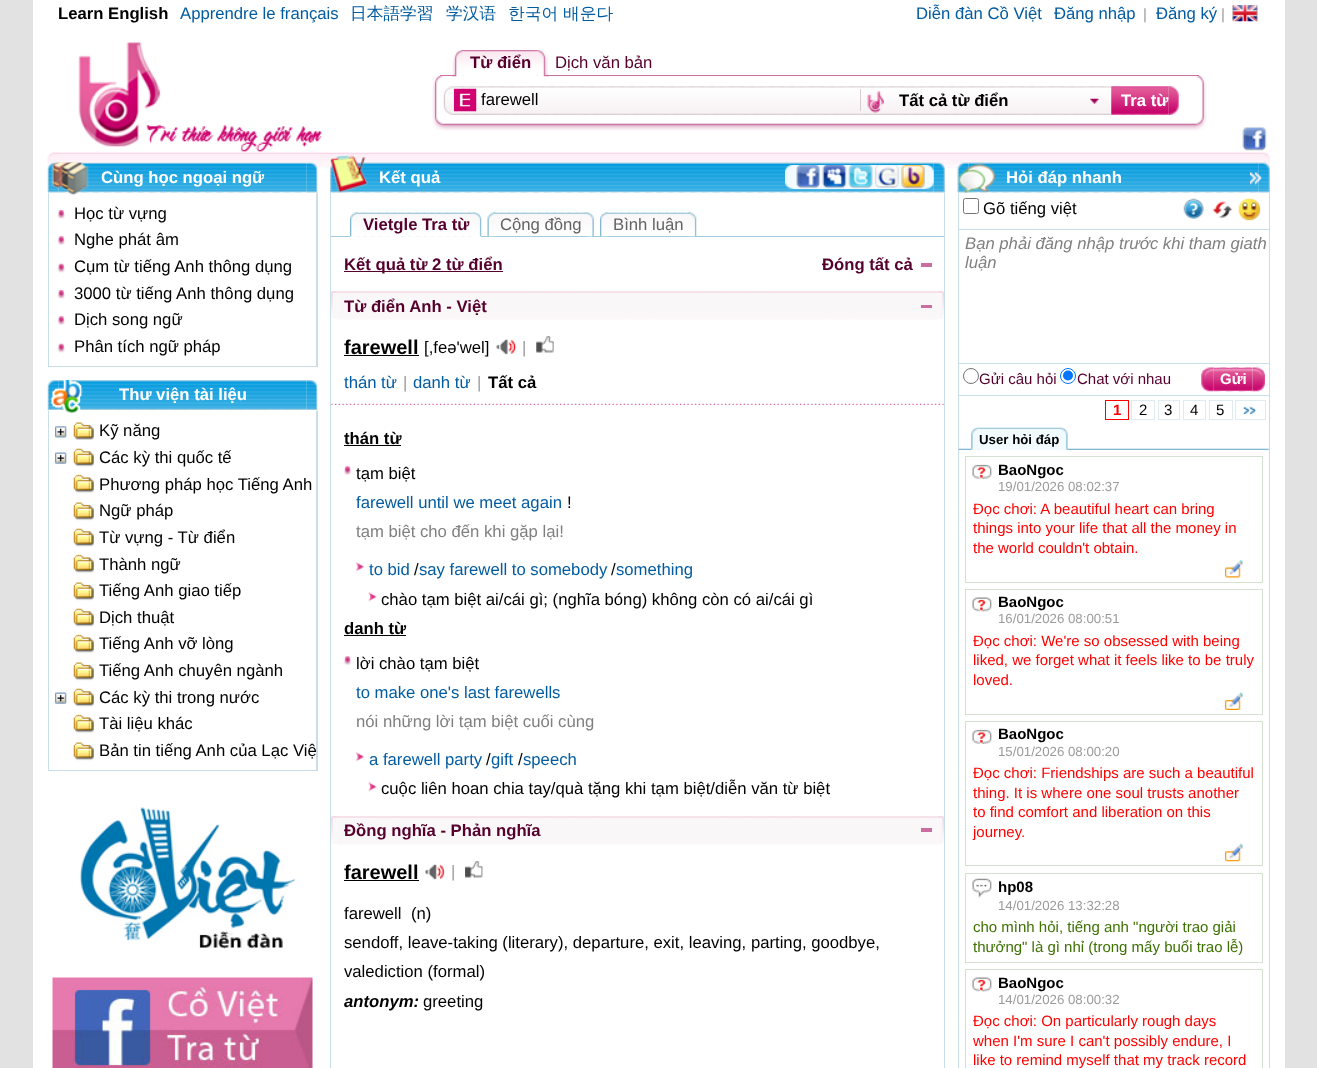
<!DOCTYPE html>
<meta charset="utf-8">
<style>body { margin: 0 } canvas { display: block }</style>
<canvas id="canvas" width="1317" height="1068"></canvas>
<img id="img1" src="img_01.png" hidden>
<img id="img2" src="img_02.png" hidden>
<img id="img3" src="img_03.png" hidden>
<img id="img4" src="img_04.png" hidden>
<img id="img5" src="img_05.png" hidden>
<img id="img6" src="img_06.png" hidden>
<img id="img7" src="img_07.png" hidden>
<img id="img8" src="img_08.png" hidden>
<img id="img9" src="img_09.png" hidden>
<img id="img10" src="img_10.png" hidden>
<img id="img11" src="img_11.png" hidden>
<img id="img12" src="img_12.png" hidden>
<img id="img13" src="img_13.png" hidden>
<img id="img14" src="img_14.png" hidden>
<img id="img15" src="img_15.png" hidden>
<img id="img16" src="img_16.png" hidden>
<img id="img17" src="img_17.png" hidden>
<img id="img18" src="img_18.png" hidden>
<img id="img19" src="img_19.png" hidden>
<img id="img20" src="img_20.png" hidden>
<img id="img21" src="img_22.png" hidden>
<img id="img22" src="img_23.png" hidden>
<img id="img23" src="img_21.png" hidden>
<img id="img24" src="img_24.png" hidden>
<img id="img25" src="img_25.png" hidden>
<img id="img26" src="img_26.png" hidden>
<img id="img27" src="img_27.png" hidden>
<img id="img28" src="img_28.png" hidden>
<img id="img29" src="img_30.png" hidden>
<img id="img30" src="img_31.png" hidden>
<img id="img31" src="img_29.png" hidden>
<img id="img32" src="img_32.png" hidden>
<img id="img33" src="img_33.png" hidden>
<img id="img34" src="img_34.png" hidden>
<img id="img35" src="img_35.png" hidden>
<img id="img36" src="img_36.png" hidden>
<img id="img37" src="img_37.png" hidden>
<img id="img38" src="img_38.png" hidden>
<img id="img39" src="img_39.png" hidden>
<img id="img40" src="img_41.png" hidden>
<img id="img41" src="img_42.png" hidden>
<img id="img42" src="img_43.png" hidden>
<img id="img43" src="img_40.png" hidden>
<img id="img44" src="img_44.png" hidden>
<img id="img45" src="img_45.png" hidden>
<img id="img46" src="img_46.png" hidden>
<img id="img47" src="img_47.png" hidden>
<img id="img48" src="img_48.png" hidden>
<img id="img49" src="img_49.png" hidden>
<img id="img50" src="img_50.png" hidden>
<img id="img51" src="img_51.png" hidden>
<img id="img52" src="img_52.png" hidden>
<img id="img53" src="img_53.png" hidden>
<img id="img54" src="img_54.png" hidden>
<img id="img55" src="img_55.png" hidden>
<img id="img56" src="img_56.png" hidden>
<img id="img57" src="img_57.png" hidden>
<img id="img58" src="img_58.png" hidden>
<img id="img59" src="img_59.png" hidden>
<img id="img60" src="img_60.png" hidden>
<img id="img61" src="img_61.png" hidden>
<img id="img62" src="img_62.png" hidden>
<img id="img63" src="img_63.png" hidden>
<img id="img64" src="img_64.png" hidden>
<img id="img65" src="img_65.png" hidden>
<img id="img66" src="img_66.png" hidden>
<img id="img67" src="img_67.png" hidden>
<img id="img68" src="img_68.png" hidden>
<img id="img69" src="img_69.png" hidden>
<img id="img70" src="img_70.png" hidden>
<img id="img71" src="img_71.png" hidden>
<img id="img72" src="img_72.png" hidden>
<img id="img73" src="img_74.png" hidden>
<img id="img74" src="img_75.png" hidden>
<img id="img75" src="img_76.png" hidden>
<img id="img76" src="img_73.png" hidden>
<img id="img77" src="img_77.png" hidden>
<img id="img78" src="img_78.png" hidden>
<img id="img79" src="img_79.png" hidden>
<img id="img80" src="img_80.png" hidden>
<img id="img81" src="img_81.png" hidden>
<img id="img82" src="img_82.png" hidden>
<img id="img83" src="img_83.png" hidden>
<img id="img84" src="img_84.png" hidden>
<img id="img85" src="img_85.png" hidden>
<img id="img86" src="img_86.png" hidden>
<img id="img87" src="img_87.png" hidden>
<img id="img88" src="img_88.png" hidden>
<img id="img89" src="img_89.png" hidden>
<img id="img90" src="img_90.png" hidden>
<img id="img91" src="img_91.png" hidden>
<img id="img92" src="img_92.png" hidden>
<img id="img93" src="img_93.png" hidden>
<img id="img94" src="img_94.png" hidden>
<script>
window.onload = function () {
	const canvas = document.getElementById("canvas");
	const ctx = canvas.getContext("2d");
	ctx.miterLimit = 4;
	ctx.fontKerning = "normal";
	function txt(s, x, y) {
		ctx.fillText(s, x, y);
	}
	function fill(x, y, w, h) {
		ctx.fillRect(x, y, w, h);
	}
	function img(id, x, y, w, h) {
		ctx.drawImage(document.getElementById(id), x, y, w, h);
	}

	ctx.fillStyle = "#E2E2E2";
	fill(0, 0, 1317, 1068);
	ctx.fillStyle = "#FFFFFF";
	fill(33, 0, 1252, 1068);
	img("img1", 1232, 5, 26, 17);
	img("img2", 78, 42, 244, 110);
	ctx.fillStyle = "#C86F9D";
	fill(440, 75, 759, 1);
	img("img3", 452, 50, 12, 27);
	img("img4", 463, 50, 75, 26);
	img("img5", 537, 50, 12, 27);
	img("img6", 432, 76, 12, 54);
	img("img7", 1196, 76, 11, 54);
	img("img8", 443, 123, 754, 8);
	img("img9", 443, 86, 11, 29);
	img("img10", 453, 86, 659, 29);
	img("img11", 453, 88, 24, 24);
	ctx.fillStyle = "#D7CCD0";
	fill(860, 89, 1, 22);
	img("img12", 867, 91, 17, 22);
	img("img13", 1090, 98, 9, 6);
	img("img14", 1168, 86, 11, 29);
	img("img15", 1111, 86, 58, 29);
	img("img16", 1242, 127, 25, 24);
	img("img17", 47, 152, 8, 15);
	img("img18", 1262, 152, 8, 15);
	img("img19", 55, 152, 1208, 16);
	ctx.fillStyle = "#C8DEE9";
	ctx.beginPath();
	ctx.moveTo(318, 192);
	ctx.lineTo(318, 368);
	ctx.lineTo(316, 366);
	ctx.lineTo(316, 194);
	ctx.closePath();
	ctx.fill();
	fill(48, 366, 270, 1);
	ctx.beginPath();
	ctx.moveTo(48, 368);
	ctx.lineTo(48, 192);
	ctx.lineTo(49, 194);
	ctx.lineTo(49, 366);
	ctx.closePath();
	ctx.fill();
	img("img20", 47, 162, 12, 31);
	img("img21", 306, 162, 12, 31);
	img("img22", 58, 162, 249, 31);
	img("img23", 51, 162, 38, 34);
	img("img24", 57, 210, 8, 9);
	img("img25", 57, 236, 8, 9);
	img("img26", 57, 263, 8, 10);
	img("img27", 57, 290, 8, 9);
	img("img25", 57, 316, 8, 9);
	img("img26", 57, 343, 8, 10);
	img("img28", 47, 380, 12, 30);
	img("img29", 306, 380, 12, 30);
	img("img30", 58, 380, 249, 30);
	img("img31", 51, 380, 32, 33);
	ctx.beginPath();
	ctx.moveTo(318, 410);
	ctx.lineTo(318, 771);
	ctx.lineTo(316, 770);
	ctx.lineTo(316, 411);
	ctx.closePath();
	ctx.fill();
	fill(48, 770, 270, 1);
	ctx.beginPath();
	ctx.moveTo(48, 771);
	ctx.lineTo(48, 410);
	ctx.lineTo(49, 411);
	ctx.lineTo(49, 770);
	ctx.closePath();
	ctx.fill();
	img("img32", 55, 422, 39, 18);
	img("img33", 55, 448, 39, 19);
	img("img34", 73, 474, 21, 19);
	img("img35", 73, 502, 21, 19);
	img("img36", 73, 528, 21, 19);
	img("img34", 73, 554, 21, 19);
	img("img37", 73, 582, 21, 19);
	img("img36", 73, 608, 21, 19);
	img("img34", 73, 634, 21, 19);
	img("img35", 73, 662, 21, 19);
	img("img33", 55, 688, 39, 19);
	img("img34", 73, 714, 21, 19);
	img("img35", 73, 742, 21, 19);
	img("img38", 79, 807, 217, 142);
	img("img39", 52, 977, 261, 91);
	img("img40", 330, 163, 12, 30);
	img("img41", 933, 162, 12, 31);
	img("img42", 341, 162, 593, 31);
	ctx.beginPath();
	ctx.moveTo(330, 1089);
	ctx.lineTo(330, 192);
	ctx.lineTo(331, 194);
	ctx.lineTo(331, 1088);
	ctx.closePath();
	ctx.fill();
	img("img43", 330, 155, 38, 38);
	img("img44", 785, 165, 8, 24);
	img("img45", 925, 165, 9, 24);
	ctx.fillStyle = "#F2FBFF";
	fill(793, 165, 132, 24);
	img("img46", 796, 165, 24, 24);
	img("img47", 822, 165, 25, 24);
	img("img48", 848, 165, 25, 24);
	img("img49", 875, 165, 24, 23);
	img("img50", 901, 165, 24, 24);
	ctx.fillStyle = "#C8DEE9";
	ctx.beginPath();
	ctx.moveTo(945, 192);
	ctx.lineTo(945, 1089);
	ctx.lineTo(944, 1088);
	ctx.lineTo(944, 194);
	ctx.closePath();
	ctx.fill();
	ctx.fillStyle = "#9BCBDF";
	fill(331, 236, 613, 1);
	ctx.fillStyle = "#FFFFFF";
	fill(350, 236, 131, 1);
	img("img51", 350, 212, 8, 25);
	img("img52", 473, 212, 9, 25);
	img("img53", 356, 212, 119, 25);
	img("img54", 487, 212, 8, 25);
	img("img55", 586, 212, 8, 25);
	img("img56", 493, 212, 95, 25);
	img("img57", 600, 212, 8, 25);
	img("img58", 688, 212, 9, 25);
	img("img59", 606, 212, 84, 25);
	ctx.fillStyle = "#54002D";
	fill(344, 271, 159, 1);
	ctx.fillStyle = "#C96E9E";
	fill(921, 263, 11, 4);
	img("img60", 331, 291, 7, 28);
	img("img61", 937, 291, 7, 28);
	img("img62", 337, 291, 601, 29);
	fill(921, 305, 11, 3);
	ctx.fillStyle = "#000000";
	fill(344, 355, 75, 1);
	img("img63", 496, 338, 21, 17);
	img("img64", 536, 336, 18, 17);
	img("img65", 331, 403, 613, 2);
	fill(344, 445, 57, 1);
	img("img66", 343, 466, 9, 9);
	img("img67", 356, 562, 8, 10);
	img("img68", 368, 592, 9, 10);
	fill(344, 635, 62, 1);
	img("img66", 343, 656, 9, 9);
	img("img67", 356, 752, 8, 10);
	img("img68", 368, 782, 9, 10);
	img("img69", 331, 816, 7, 28);
	img("img70", 937, 816, 7, 28);
	img("img62", 337, 816, 601, 29);
	ctx.fillStyle = "#C96E9E";
	fill(921, 828, 11, 4);
	ctx.fillStyle = "#000000";
	fill(344, 880, 75, 1);
	img("img71", 425, 863, 20, 17);
	img("img72", 465, 861, 18, 17);
	img("img73", 957, 162, 12, 31);
	img("img74", 1258, 162, 12, 31);
	img("img75", 968, 162, 291, 31);
	ctx.fillStyle = "#C8DEE9";
	ctx.beginPath();
	ctx.moveTo(958, 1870);
	ctx.lineTo(958, 192);
	ctx.lineTo(959, 194);
	ctx.lineTo(959, 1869);
	ctx.closePath();
	ctx.fill();
	img("img76", 958, 163, 37, 30);
	ctx.beginPath();
	ctx.moveTo(1270, 192);
	ctx.lineTo(1270, 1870);
	ctx.lineTo(1269, 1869);
	ctx.lineTo(1269, 194);
	ctx.closePath();
	ctx.fill();
	ctx.beginPath();
	ctx.roundRect(963.5, 198.5, 15, 15, 2);
	ctx.strokeStyle = "#767676";
	ctx.stroke();
	img("img77", 1183, 198, 21, 21);
	img("img78", 1212, 201, 21, 18);
	img("img79", 1238, 198, 23, 23);
	fill(959, 229, 310, 1);
	fill(959, 363, 310, 1);
	fill(959, 395, 310, 1);
	ctx.beginPath();
	ctx.arc(971, 376, 7.5, 0, Math.PI * 2);
	ctx.stroke();
	ctx.beginPath();
	ctx.arc(1068, 376, 7.5, 0, Math.PI * 2);
	ctx.strokeStyle = "#0075FF";
	ctx.stroke();
	ctx.fillStyle = "#0075FF";
	ctx.beginPath();
	ctx.arc(1068, 375.5, 5, 0, Math.PI * 2);
	ctx.fill();
	img("img80", 1201, 367, 13, 25);
	img("img81", 1252, 367, 13, 25);
	img("img82", 1213, 367, 40, 25);
	ctx.strokeStyle = "#FF0000";
	ctx.strokeRect(1105.5, 400.5, 23, 19);
	ctx.strokeStyle = "#DEEBF1";
	ctx.strokeRect(1131.5, 400.5, 23, 19);
	ctx.strokeRect(1158.5, 400.5, 21, 19);
	ctx.strokeRect(1183.5, 400.5, 22, 19);
	ctx.strokeRect(1209.5, 400.5, 23, 19);
	ctx.strokeRect(1235.5, 400.5, 30, 19);
	img("img83", 1243, 406, 14, 9);
	img("img84", 958, 448, 311, 2);
	img("img85", 971, 427, 8, 23);
	img("img86", 1060, 427, 8, 23);
	img("img87", 978, 427, 82, 23);
	ctx.strokeStyle = "#D4E0D0";
	ctx.strokeRect(965.5, 456.5, 297, 126);
	img("img88", 972, 464, 20, 15);
	img("img89", 1225, 559, 18, 19);
	ctx.strokeRect(965.5, 589.5, 297, 125);
	img("img90", 972, 597, 21, 15);
	img("img91", 1225, 692, 18, 18);
	ctx.strokeRect(965.5, 721.5, 297, 144);
	img("img88", 972, 729, 20, 15);
	img("img92", 1225, 843, 18, 19);
	ctx.strokeRect(965.5, 873.5, 297, 89);
	img("img93", 972, 878, 20, 20);
	ctx.strokeRect(965.5, 969.5, 297, 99);
	img("img90", 972, 977, 21, 15);
	img("img94", 1250, 172, 12, 13);
	ctx.font = "bold 16.7px Liberation Sans";
	ctx.fillStyle = "#000000";
	txt("Learn English", 58, 19);
	ctx.font = "16.7px Liberation Sans";
	ctx.fillStyle = "#035CA0";
	txt("Apprendre le français", 180, 19);
	ctx.font = "500 16.7px WenQuanYi Zen Hei";
	txt("日本語学習", 350, 19);
	txt("学汉语", 446, 19);
	txt("한국어 배운다", 508, 19);
	ctx.font = "16.7px Liberation Sans";
	txt("Diễn đàn Cồ Việt", 916, 19);
	txt("Đăng nhập", 1054, 19);
	ctx.font = "15px Liberation Sans";
	ctx.fillStyle = "#9B9B9B";
	txt("|", 1143, 19);
	ctx.font = "16.7px Liberation Sans";
	ctx.fillStyle = "#035CA0";
	txt("Đăng ký", 1156, 19);
	ctx.font = "15px Liberation Sans";
	ctx.fillStyle = "#9B9B9B";
	txt("|", 1221, 19);
	ctx.font = "bold 16.7px Liberation Sans";
	ctx.fillStyle = "#56002D";
	txt("Từ điển", 470, 68);
	ctx.font = "16.7px Liberation Sans";
	txt("Dịch văn bản", 555, 68);
	ctx.fillStyle = "#000000";
	txt("farewell", 481, 105);
	ctx.font = "bold 16.7px Liberation Sans";
	txt("Tất cả từ điển", 899, 106);
	ctx.fillStyle = "#FFFFFF";
	txt("Tra từ", 1121, 106);
	txt("Cùng học ngoại ngữ", 101, 183);
	ctx.font = "16.7px Liberation Sans";
	ctx.fillStyle = "#000000";
	txt("Học từ vựng", 74, 219);
	txt("Nghe phát âm", 74, 245);
	txt("Cụm từ tiếng Anh thông dụng", 74, 272);
	txt("3000 từ tiếng Anh thông dụng", 74, 299);
	txt("Dịch song ngữ", 74, 325);
	txt("Phân tích ngữ pháp", 74, 352);
	ctx.font = "bold 16.7px Liberation Sans";
	ctx.fillStyle = "#FFFFFF";
	txt("Thư viện tài liệu", 119, 400);
	ctx.font = "16.7px Liberation Sans";
	ctx.fillStyle = "#000000";
	txt("Kỹ năng", 99, 436);
	txt("Các kỳ thi quốc tế", 99, 463);
	txt("Phương pháp học Tiếng Anh", 99, 490);
	txt("Ngữ pháp", 99, 516);
	txt("Từ vựng - Từ điển", 99, 543);
	txt("Thành ngữ", 99, 570);
	txt("Tiếng Anh giao tiếp", 99, 596);
	txt("Dịch thuật", 99, 623);
	txt("Tiếng Anh vỡ lòng", 99, 649);
	txt("Tiếng Anh chuyên ngành", 99, 676);
	txt("Các kỳ thi trong nước", 99, 703);
	txt("Tài liệu khác", 99, 729);
	txt("Bản tin tiếng Anh của Lạc Việ", 99, 756);
	ctx.font = "bold 16.7px Liberation Sans";
	ctx.fillStyle = "#FFFFFF";
	txt("Kết quả", 379, 183);
	ctx.fillStyle = "#56002D";
	txt("Vietgle Tra từ", 363, 230);
	ctx.font = "16.7px Liberation Sans";
	ctx.fillStyle = "#636363";
	txt("Cộng đồng", 500, 230);
	txt("Bình luận", 613, 230);
	ctx.font = "bold 16.7px Liberation Sans";
	ctx.fillStyle = "#56002D";
	txt("Kết quả từ 2 từ điển", 344, 270);
	txt("Đóng tất cả", 822, 270);
	txt("Từ điển Anh - Việt", 344, 312);
	ctx.font = "bold 20px Liberation Sans";
	ctx.fillStyle = "#000000";
	txt("farewell", 344, 354);
	ctx.font = "16.7px Liberation Sans";
	txt("[,feə'wel]", 424, 353);
	ctx.fillStyle = "#9B9B9B";
	txt("|", 522, 353);
	ctx.fillStyle = "#035CA0";
	txt("thán từ", 344, 388);
	ctx.fillStyle = "#9B9B9B";
	txt("|", 403, 388);
	ctx.fillStyle = "#035CA0";
	txt("danh từ", 413, 388);
	ctx.fillStyle = "#9B9B9B";
	txt("|", 477, 388);
	ctx.font = "bold 16.7px Liberation Sans";
	ctx.fillStyle = "#000000";
	txt("Tất cả", 488, 388);
	txt("thán từ", 344, 444);
	ctx.font = "16.7px Liberation Sans";
	txt("tạm biệt", 356, 479);
	ctx.fillStyle = "#035CA0";
	txt("farewell until we meet again", 356, 508);
	ctx.fillStyle = "#000000";
	txt("!", 567, 508);
	ctx.fillStyle = "#808080";
	txt("tạm biệt cho đến khi gặp lại!", 356, 537);
	ctx.fillStyle = "#035CA0";
	txt("to bid", 369, 575);
	ctx.fillStyle = "#000000";
	txt("/", 414, 575);
	ctx.fillStyle = "#035CA0";
	txt("say farewell to somebody", 419, 575);
	ctx.fillStyle = "#000000";
	txt("/", 611, 575);
	ctx.fillStyle = "#035CA0";
	txt("something", 616, 575);
	ctx.fillStyle = "#000000";
	txt("chào tạm biệt ai/cái gì; (nghĩa bóng) không còn có ai/cái gì", 381, 605);
	ctx.font = "bold 16.7px Liberation Sans";
	txt("danh từ", 344, 634);
	ctx.font = "16.7px Liberation Sans";
	txt("lời chào tạm biệt", 356, 669);
	ctx.fillStyle = "#035CA0";
	txt("to make one's last farewells", 356, 698);
	ctx.fillStyle = "#808080";
	txt("nói những lời tạm biệt cuối cùng", 356, 727);
	ctx.fillStyle = "#035CA0";
	txt("a farewell party", 369, 765);
	ctx.fillStyle = "#000000";
	txt("/", 486, 765);
	ctx.fillStyle = "#035CA0";
	txt("gift", 491, 765);
	ctx.fillStyle = "#000000";
	txt("/", 518, 765);
	ctx.fillStyle = "#035CA0";
	txt("speech", 523, 765);
	ctx.fillStyle = "#000000";
	txt("cuộc liên hoan chia tay/quà tặng khi tạm biệt/diễn văn từ biệt", 381, 794);
	ctx.font = "bold 16.7px Liberation Sans";
	ctx.fillStyle = "#56002D";
	txt("Đồng nghĩa - Phản nghĩa", 344, 836);
	ctx.font = "bold 20px Liberation Sans";
	ctx.fillStyle = "#000000";
	txt("farewell", 344, 879);
	ctx.font = "16.7px Liberation Sans";
	ctx.fillStyle = "#9B9B9B";
	txt("|", 451, 877);
	ctx.fillStyle = "#000000";
	txt("farewell", 344, 919);
	txt("(n)", 411, 919);
	txt("sendoff, leave-taking (literary), departure, exit, leaving, parting, goodbye,", 344, 948);
	txt("valediction (formal)", 344, 977);
	ctx.font = "italic bold 16.7px Liberation Sans";
	txt("antonym:", 344, 1007);
	ctx.font = "16.7px Liberation Sans";
	txt("greeting", 423, 1007);
	ctx.font = "bold 16.7px Liberation Sans";
	ctx.fillStyle = "#FFFFFF";
	txt("Hỏi đáp nhanh", 1006, 183);
	ctx.font = "16.7px Liberation Sans";
	ctx.fillStyle = "#000000";
	txt("Gõ tiếng việt", 983, 214);
	ctx.font = "italic 16.7px Liberation Sans";
	ctx.fillStyle = "#808080";
	txt("Bạn phải đăng nhập trước khi tham giath", 965, 249);
	txt("luận", 965, 268);
	ctx.font = "15px Liberation Sans";
	ctx.fillStyle = "#56002D";
	txt("Gửi câu hỏi", 979, 384);
	txt("Chat với nhau", 1077, 384);
	ctx.font = "bold 15px Liberation Sans";
	ctx.fillStyle = "#FFFFFF";
	txt("Gửi", 1220, 384);
	ctx.fillStyle = "#FF0000";
	txt("1", 1113, 415);
	ctx.font = "15px Liberation Sans";
	ctx.fillStyle = "#000000";
	txt("2", 1139, 415);
	txt("3", 1164, 415);
	txt("4", 1190, 415);
	txt("5", 1216, 415);
	ctx.font = "bold 13.25px Liberation Sans";
	txt("User hỏi đáp", 979, 444);
	ctx.font = "bold 15px Liberation Sans";
	txt("BaoNgoc", 998, 475);
	ctx.font = "13.25px Liberation Sans";
	ctx.fillStyle = "#9B9B9B";
	txt("19/01/2026 08:02:37", 998, 491);
	ctx.font = "15px Liberation Sans";
	ctx.fillStyle = "#FF0000";
	txt("Đọc chơi: A beautiful heart can bring", 973, 514);
	txt("things into your life that all the money in", 973, 533);
	txt("the world couldn't obtain.", 973, 553);
	ctx.font = "bold 15px Liberation Sans";
	ctx.fillStyle = "#000000";
	txt("BaoNgoc", 998, 607);
	ctx.font = "13.25px Liberation Sans";
	ctx.fillStyle = "#9B9B9B";
	txt("16/01/2026 08:00:51", 998, 623);
	ctx.font = "15px Liberation Sans";
	ctx.fillStyle = "#FF0000";
	txt("Đọc chơi: We're so obsessed with being", 973, 646);
	txt("liked, we forget what it feels like to be truly", 973, 665);
	txt("loved.", 973, 685);
	ctx.font = "bold 15px Liberation Sans";
	ctx.fillStyle = "#000000";
	txt("BaoNgoc", 998, 739);
	ctx.font = "13.25px Liberation Sans";
	ctx.fillStyle = "#9B9B9B";
	txt("15/01/2026 08:00:20", 998, 756);
	ctx.font = "15px Liberation Sans";
	ctx.fillStyle = "#FF0000";
	txt("Đọc chơi: Friendships are such a beautiful", 973, 778);
	txt("thing. It is where one soul trusts another", 973, 798);
	txt("to find comfort and liberation on this", 973, 817);
	txt("journey.", 973, 837);
	ctx.font = "bold 15px Liberation Sans";
	ctx.fillStyle = "#000000";
	txt("hp08", 998, 892);
	ctx.font = "13.25px Liberation Sans";
	ctx.fillStyle = "#9B9B9B";
	txt("14/01/2026 13:32:28", 998, 910);
	ctx.font = "15px Liberation Sans";
	ctx.fillStyle = "#3D7102";
	txt("cho mình hỏi, tiếng anh \"người trao giải", 973, 932);
	txt("thưởng\" là gì nhỉ (trong mấy buổi trao lễ)", 973, 952);
	ctx.font = "bold 15px Liberation Sans";
	ctx.fillStyle = "#000000";
	txt("BaoNgoc", 998, 988);
	ctx.font = "13.25px Liberation Sans";
	ctx.fillStyle = "#9B9B9B";
	txt("14/01/2026 08:00:32", 998, 1004);
	ctx.font = "15px Liberation Sans";
	ctx.fillStyle = "#FF0000";
	txt("Đọc chơi: On particularly rough days", 973, 1026);
	txt("when I'm sure I can't possibly endure, I", 973, 1046);
	txt("like to remind myself that my track record", 973, 1065);
};
</script>
